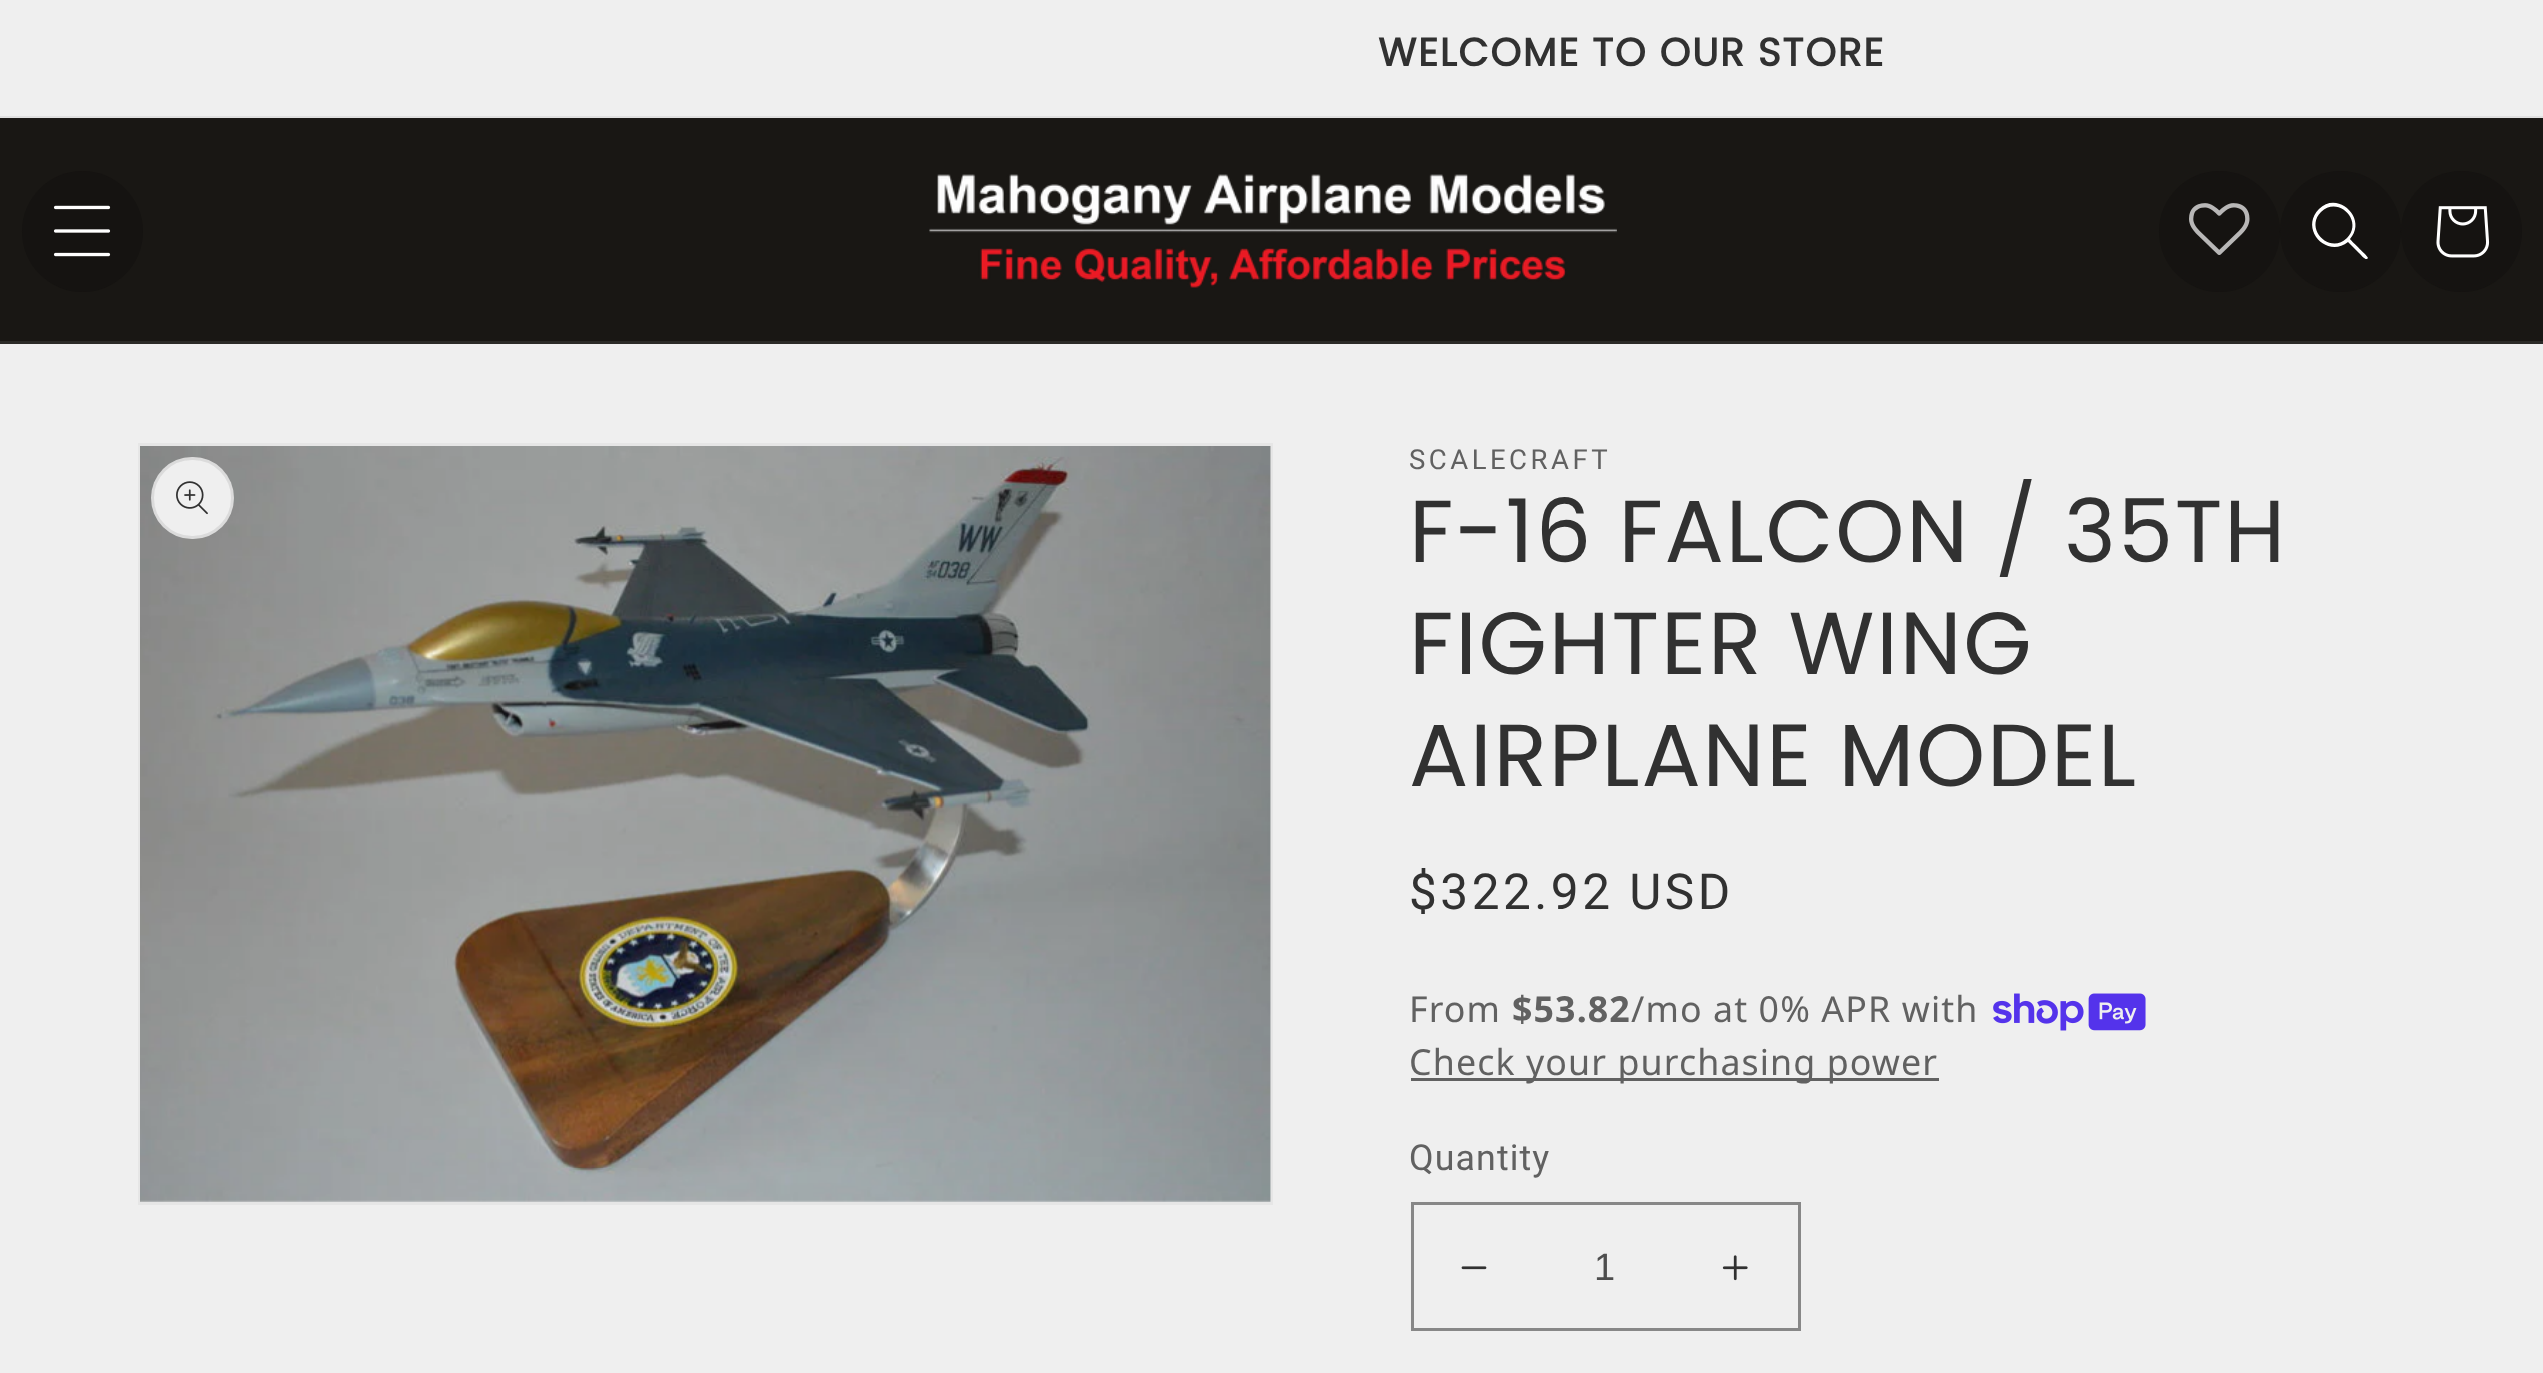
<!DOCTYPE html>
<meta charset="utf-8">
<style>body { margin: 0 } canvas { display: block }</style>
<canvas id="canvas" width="2543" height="1373"></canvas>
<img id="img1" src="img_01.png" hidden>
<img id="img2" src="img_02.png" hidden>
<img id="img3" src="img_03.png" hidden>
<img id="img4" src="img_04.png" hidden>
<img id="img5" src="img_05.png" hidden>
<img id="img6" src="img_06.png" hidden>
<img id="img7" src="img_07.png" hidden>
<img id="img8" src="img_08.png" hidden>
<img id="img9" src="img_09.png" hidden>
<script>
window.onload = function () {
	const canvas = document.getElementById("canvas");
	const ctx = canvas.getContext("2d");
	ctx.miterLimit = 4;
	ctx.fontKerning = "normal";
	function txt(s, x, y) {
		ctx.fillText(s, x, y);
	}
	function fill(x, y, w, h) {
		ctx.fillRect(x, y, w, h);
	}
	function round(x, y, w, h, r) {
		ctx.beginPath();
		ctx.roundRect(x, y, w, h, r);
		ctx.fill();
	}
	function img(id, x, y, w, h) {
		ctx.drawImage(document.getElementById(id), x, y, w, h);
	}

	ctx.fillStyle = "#EFEFEF";
	fill(0, 0, 2543, 1373);
	ctx.fillStyle = "#E0E0E0";
	fill(0, 116, 2543, 2);
	ctx.fillStyle = "#191714";
	fill(0, 119, 2543, 222);
	ctx.fillStyle = "#1B1916";
	fill(0, 118, 2543, 1);
	ctx.fillStyle = "#2B2A27";
	fill(0, 341, 2543, 3);
	ctx.fillStyle = "#151311";
	ctx.beginPath();
	ctx.arc(82.5, 231.5, 60.5, 0, Math.PI * 2);
	ctx.fill();
	img("img1", 53, 205, 58, 52);
	img("img2", 929, 174, 688, 114);
	ctx.beginPath();
	ctx.arc(2219.5, 231.5, 60.5, 0, Math.PI * 2);
	ctx.fill();
	img("img3", 2189, 203, 61, 52);
	ctx.beginPath();
	ctx.arc(2340.5, 231.5, 60.5, 0, Math.PI * 2);
	ctx.fill();
	ctx.fillStyle = "#FFFFFF";
	ctx.beginPath();
	ctx.moveTo(2347, 238);
	ctx.bezierCurveTo(2330, 255, 2304, 229, 2321, 212);
	ctx.bezierCurveTo(2338, 195, 2364, 221, 2347, 238);
	ctx.closePath();
	ctx.moveTo(2348, 242);
	ctx.bezierCurveTo(2327, 259, 2299, 229, 2319, 209);
	ctx.bezierCurveTo(2338, 190, 2368, 219, 2350, 239);
	ctx.bezierCurveTo(2352, 242, 2368, 256, 2368, 258);
	ctx.lineTo(2367, 259);
	ctx.bezierCurveTo(2365, 260, 2360, 254, 2359, 253);
	ctx.closePath();
	ctx.fill("evenodd");
	ctx.fillStyle = "#151311";
	ctx.beginPath();
	ctx.arc(2461.5, 231.5, 60.5, 0, Math.PI * 2);
	ctx.fill();
	img("img4", 2436, 206, 54, 52);
	ctx.strokeStyle = "#E6E6E6";
	ctx.lineWidth = 3;
	ctx.strokeRect(139.5, 444.5, 1132, 759);
	img("img5", 140, 446, 1131, 756);
	ctx.fillStyle = "#EFEFEF";
	round(151, 457, 83, 82, 41);
	ctx.beginPath();
	ctx.roundRect(152.5, 458.5, 80, 79, 39.5);
	ctx.strokeStyle = "rgba(49, 49, 49, 0.1)";
	ctx.stroke();
	img("img6", 176, 481, 32, 34);
	img("img7", 1993, 993, 153, 38);
	ctx.fillStyle = "#616161";
	fill(1411, 1078, 528, 3);
	img("img8", 1461, 1266, 26, 4);
	img("img9", 1722, 1255, 26, 26);
	ctx.strokeStyle = "#878787";
	ctx.strokeRect(1412.5, 1203.5, 387, 126);
	ctx.letterSpacing = "1.6px";
	ctx.font = "bold 39.3px Poppins";
	ctx.fillStyle = "#313131";
	txt("WELCOME TO OUR STORE", 1378, 66);
	ctx.letterSpacing = "3.5px";
	ctx.font = "27.5px Roboto";
	ctx.fillStyle = "#616161";
	txt("SCALECRAFT", 1409, 469);
	ctx.letterSpacing = "1.8px";
	ctx.font = "88px Poppins";
	ctx.fillStyle = "#313131";
	txt("F-16 FALCON / 35TH", 1409, 562);
	txt("FIGHTER WING", 1409, 674);
	txt("AIRPLANE MODEL", 1409, 786);
	ctx.letterSpacing = "3.5px";
	ctx.font = "49.5px Roboto";
	txt("$322.92 USD", 1409, 909);
	ctx.letterSpacing = "1.1px";
	ctx.font = "35.75px Noto Sans";
	ctx.fillStyle = "#616161";
	txt("From", 1409, 1022);
	ctx.font = "bold 35.75px Noto Sans";
	txt("$53.82", 1512, 1022);
	ctx.font = "35.75px Noto Sans";
	txt("/mo at 0% APR with", 1631, 1022);
	txt("Check your purchasing power", 1409, 1075);
	ctx.font = "35.75px Roboto";
	txt("Quantity", 1409, 1170);
	ctx.letterSpacing = "0px";
	ctx.font = "38px Liberation Sans";
	ctx.fillStyle = "#4E4E4E";
	txt("1", 1594, 1280);
};
</script>
